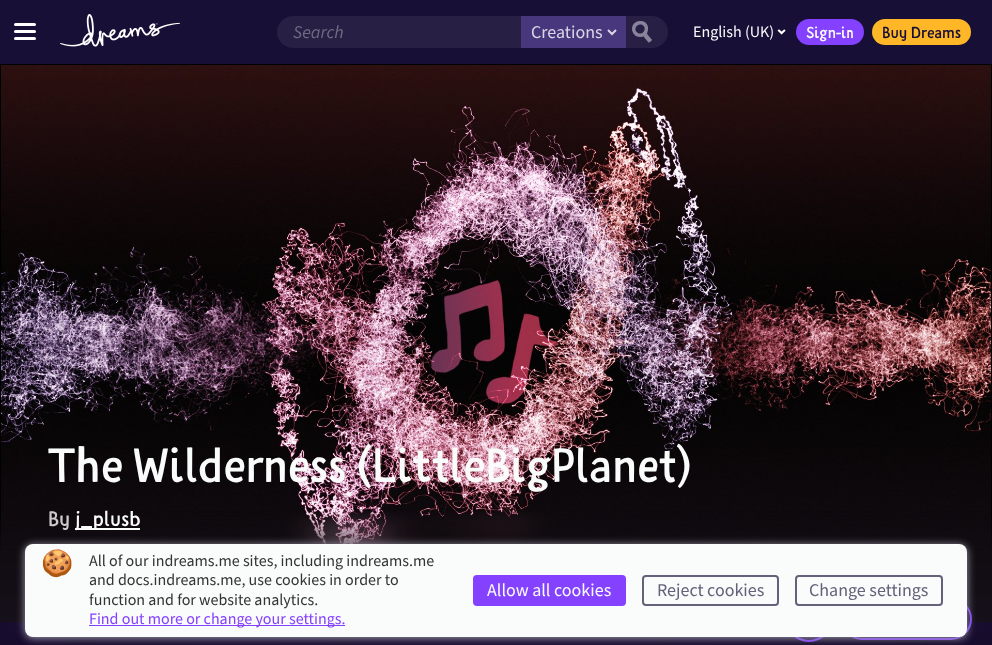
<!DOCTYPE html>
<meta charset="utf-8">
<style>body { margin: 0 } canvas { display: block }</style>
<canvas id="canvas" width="992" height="645"></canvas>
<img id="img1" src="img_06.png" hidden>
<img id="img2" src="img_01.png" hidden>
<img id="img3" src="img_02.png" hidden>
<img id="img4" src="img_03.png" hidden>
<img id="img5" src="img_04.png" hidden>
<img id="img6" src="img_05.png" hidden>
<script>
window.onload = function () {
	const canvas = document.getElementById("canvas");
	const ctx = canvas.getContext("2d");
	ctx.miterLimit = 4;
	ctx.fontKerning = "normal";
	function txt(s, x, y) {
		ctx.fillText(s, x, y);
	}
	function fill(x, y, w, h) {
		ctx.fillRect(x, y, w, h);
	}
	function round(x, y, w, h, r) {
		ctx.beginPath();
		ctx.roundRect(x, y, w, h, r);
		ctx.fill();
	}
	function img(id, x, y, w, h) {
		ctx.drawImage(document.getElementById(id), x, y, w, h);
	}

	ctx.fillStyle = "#FFFFFF";
	fill(0, 0, 992, 645);
	img("img1", 0, 622, 992, 23);
	ctx.fillStyle = "rgba(28, 14, 56, 0.7)";
	fill(0, 622, 992, 23);
	ctx.fillStyle = "rgba(28, 14, 56, 0.5)";
	ctx.filter = "blur(16px)";
	ctx.beginPath();
	ctx.rect(-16, 48, 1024, 590);
	ctx.fill();
	ctx.filter = "none";
	ctx.fillStyle = "#170F36";
	fill(0, 0, 992, 64);
	ctx.fillStyle = "#FFFFFF";
	round(14, 23, 22, 3, 1.5);
	round(14, 30, 22, 3, 1.5);
	round(14, 37, 22, 3, 1.5);
	img("img2", 60, 14, 120, 33);
	ctx.fillStyle = "#272044";
	ctx.beginPath();
	ctx.roundRect(277, 16, 244, 32, [16, 0, 0, 16]);
	ctx.fill();
	ctx.fillStyle = "#48377C";
	fill(521, 16, 105, 32);
	ctx.beginPath();
	ctx.moveTo(608, 30);
	ctx.lineTo(612, 34);
	ctx.lineTo(616, 30);
	ctx.strokeStyle = "#DAD7E5";
	ctx.lineWidth = 2;
	ctx.stroke();
	ctx.fillStyle = "#272044";
	ctx.beginPath();
	ctx.roundRect(626, 16, 42, 32, [0, 16, 16, 0]);
	ctx.fill();
	img("img3", 632, 21, 20, 22);
	img("img4", 777, 29, 9, 6);
	ctx.fillStyle = "#8441FF";
	round(796, 19, 68, 26, 13);
	ctx.fillStyle = "#FFB727";
	round(872, 19, 99, 26, 13);
	img("img5", 0, 64, 992, 491);
	img("img6", 0, 511, 992, 111);
	ctx.fillStyle = "#FAFBFB";
	fill(75, 528, 65, 2);
	ctx.fillStyle = "rgba(28, 14, 56, 0.9)";
	ctx.beginPath();
	ctx.arc(809, 618, 23, 0, Math.PI * 2);
	ctx.fill();
	ctx.strokeStyle = "#8441FF";
	ctx.stroke();
	ctx.beginPath();
	ctx.roundRect(842, 599, 129, 40, 20);
	ctx.fill();
	ctx.stroke();
	ctx.fillStyle = "#A4A1B0";
	ctx.filter = "blur(4px)";
	ctx.beginPath();
	ctx.roundRect(25, 545, 942, 93, 8);
	ctx.fill();
	ctx.filter = "none";
	ctx.fillStyle = "#FAFBFB";
	round(25, 544, 942, 93, 8);
	ctx.fillStyle = "#8441FF";
	fill(89, 625, 256, 1);
	ctx.beginPath();
	ctx.roundRect(474, 576, 151, 29, 3);
	ctx.fill();
	ctx.stroke();
	ctx.beginPath();
	ctx.roundRect(643, 576, 135, 29, 3);
	ctx.strokeStyle = "#66617A";
	ctx.stroke();
	ctx.beginPath();
	ctx.roundRect(796, 576, 146, 29, 3);
	ctx.stroke();
	ctx.font = "italic 18px Source Sans Pro";
	ctx.fillStyle = "#6F6B82";
	txt("Search", 293, 38);
	ctx.font = "18px Source Sans Pro";
	ctx.fillStyle = "#DAD7E5";
	txt("Creations", 531, 38);
	ctx.font = "16px Source Sans Pro";
	ctx.fillStyle = "#FAFBFB";
	txt("English (UK)", 693, 37);
	ctx.font = "16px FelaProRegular";
	txt("Sign-in", 806, 38);
	ctx.fillStyle = "#170F36";
	txt("Buy Dreams", 882, 38);
	ctx.font = "48px FelaProRegular";
	ctx.fillStyle = "#FAFBFB";
	txt("The Wilderness (LittleBigPlanet)", 48, 482);
	ctx.font = "21px FelaProRegular";
	ctx.fillStyle = "#CBCBCC";
	txt("By", 48, 526);
	ctx.fillStyle = "#FAFBFB";
	txt("j_plusb", 75, 526);
	ctx.font = "26px Noto Color Emoji";
	ctx.fillStyle = "#343434";
	txt("🍪", 41, 572);
	ctx.font = "16px Source Sans Pro";
	txt("All of our indreams.me sites, including indreams.me", 89, 566);
	txt("and docs.indreams.me, use cookies in order to", 89, 585);
	txt("function and for website analytics.", 89, 605);
	ctx.fillStyle = "#8441FF";
	txt("Find out more or change your settings.", 89, 624);
	ctx.font = "18px Source Sans Pro";
	ctx.fillStyle = "#FAFBFB";
	txt("Allow all cookies", 487, 596);
	ctx.fillStyle = "#66617A";
	txt("Reject cookies", 657, 596);
	txt("Change settings", 809, 596);
};
</script>
